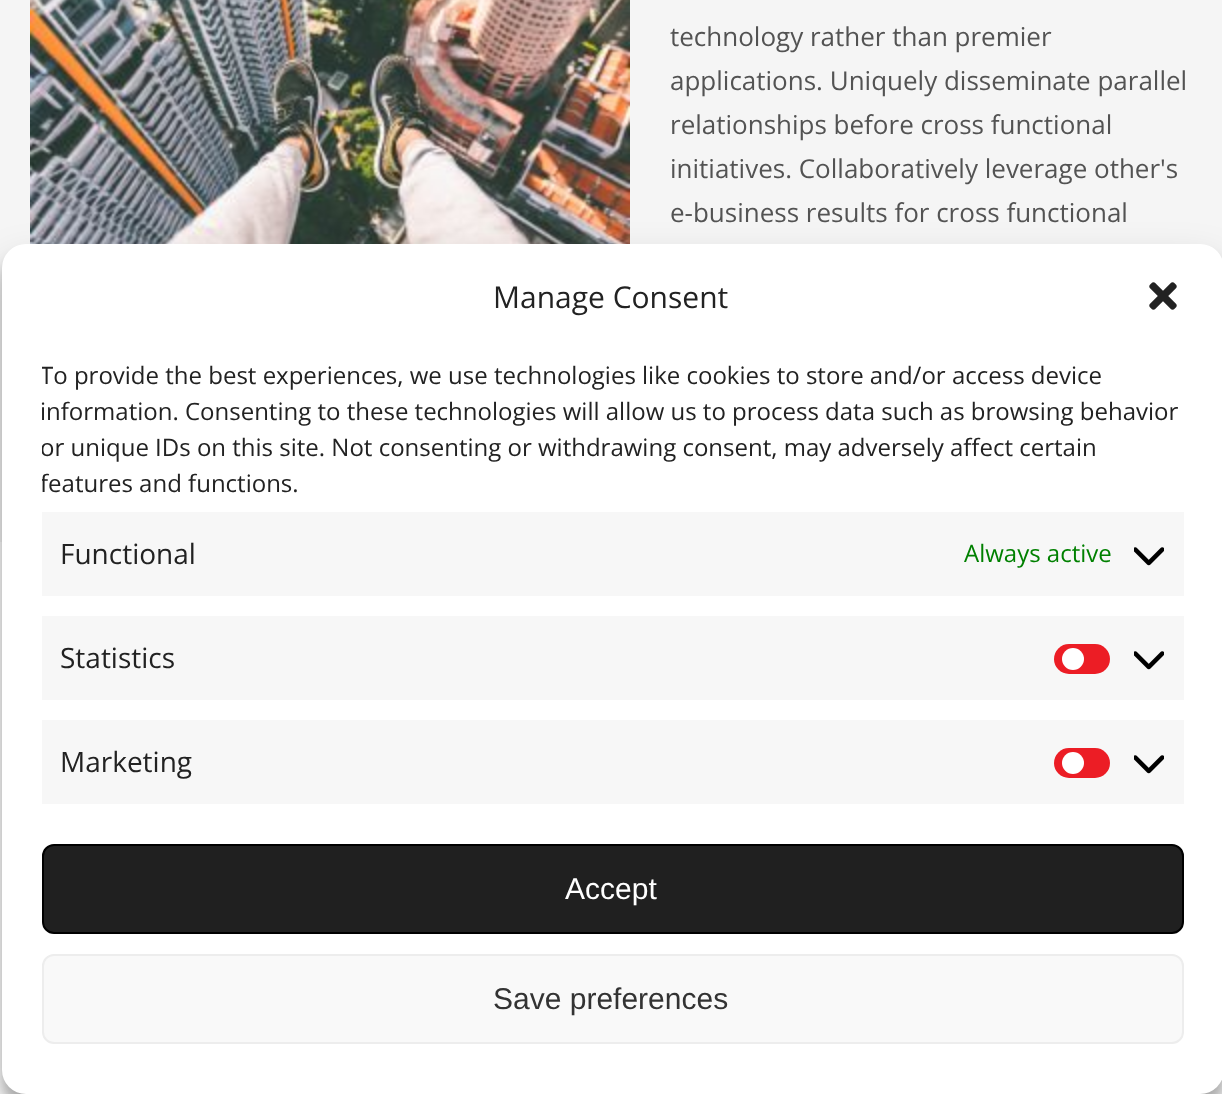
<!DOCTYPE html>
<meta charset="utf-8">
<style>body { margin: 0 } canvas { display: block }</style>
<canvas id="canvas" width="1222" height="1094"></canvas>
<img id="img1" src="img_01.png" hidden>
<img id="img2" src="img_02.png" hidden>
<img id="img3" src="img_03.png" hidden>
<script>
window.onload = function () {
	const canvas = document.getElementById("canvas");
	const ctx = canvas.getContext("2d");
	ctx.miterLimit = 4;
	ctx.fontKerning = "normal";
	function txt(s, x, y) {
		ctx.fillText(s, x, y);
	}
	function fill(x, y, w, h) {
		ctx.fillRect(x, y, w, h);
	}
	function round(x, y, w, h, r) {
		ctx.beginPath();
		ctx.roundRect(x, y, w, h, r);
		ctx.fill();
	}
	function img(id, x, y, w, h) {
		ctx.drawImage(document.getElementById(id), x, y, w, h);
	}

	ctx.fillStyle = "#F5F5F5";
	fill(0, 0, 1222, 1094);
	img("img1", 30, 0, 600, 244);
	ctx.fillStyle = "#FFFFFF";
	fill(0, 542, 1222, 552);
	ctx.fillStyle = "rgba(0, 0, 0, 0.23)";
	ctx.filter = "blur(6px)";
	ctx.beginPath();
	ctx.roundRect(2, 256, 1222, 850, 24);
	ctx.fill();
	ctx.filter = "none";
	ctx.fillStyle = "rgba(0, 0, 0, 0.19)";
	ctx.filter = "blur(20px)";
	ctx.beginPath();
	ctx.roundRect(2, 264, 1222, 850, 24);
	ctx.fill();
	ctx.filter = "none";
	ctx.fillStyle = "#FFFFFF";
	round(2, 244, 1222, 850, 24);
	img("img2", 1149, 282, 28, 28);
	ctx.fillStyle = "#F7F7F7";
	fill(42, 512, 1142, 84);
	img("img3", 1134, 547, 30, 19);
	fill(42, 616, 1142, 84);
	ctx.fillStyle = "#EC1D25";
	round(1054, 644, 56, 30, 15);
	ctx.fillStyle = "#FFFFFF";
	ctx.beginPath();
	ctx.arc(1073, 659, 11, 0, Math.PI * 2);
	ctx.fill();
	img("img3", 1134, 651, 30, 19);
	ctx.fillStyle = "#F7F7F7";
	fill(42, 720, 1142, 84);
	ctx.fillStyle = "#EC1D25";
	round(1054, 748, 56, 30, 15);
	ctx.fillStyle = "#FFFFFF";
	ctx.beginPath();
	ctx.arc(1073, 763, 11, 0, Math.PI * 2);
	ctx.fill();
	img("img3", 1134, 755, 30, 19);
	ctx.fillStyle = "#202020";
	ctx.beginPath();
	ctx.roundRect(43, 845, 1140, 88, 11);
	ctx.fill();
	ctx.strokeStyle = "#000000";
	ctx.lineWidth = 2;
	ctx.stroke();
	ctx.fillStyle = "#F9F9F9";
	ctx.beginPath();
	ctx.roundRect(43, 955, 1140, 88, 11);
	ctx.fill();
	ctx.strokeStyle = "#EDEDED";
	ctx.stroke();
	ctx.font = "26px Open Sans";
	ctx.fillStyle = "#535353";
	txt("technology rather than premier", 670, 46);
	txt("applications. Uniquely disseminate parallel", 670, 90);
	txt("relationships before cross functional", 670, 134);
	txt("initiatives. Collaboratively leverage other's", 670, 178);
	txt("e-business results for cross functional", 670, 222);
	ctx.font = "30px Open Sans";
	ctx.fillStyle = "#222222";
	txt("Manage Consent", 493, 308);
	ctx.save();
	ctx.beginPath();
	ctx.rect(42, 358, 1142, 446);
	ctx.clip();
	ctx.font = "24px Open Sans";
	txt("To provide the best experiences, we use technologies like cookies to store and/or access device", 40, 384);
	ctx.restore();
	ctx.font = "24px Open Sans";
	txt("information. Consenting to these technologies will allow us to process data such as browsing behavior", 40, 420);
	ctx.save();
	ctx.beginPath();
	ctx.rect(42, 358, 1142, 446);
	ctx.clip();
	txt("or unique IDs on this site. Not consenting or withdrawing consent, may adversely affect certain", 40, 456);
	txt("features and functions.", 40, 492);
	ctx.restore();
	ctx.font = "28px Open Sans";
	txt("Functional", 60, 564);
	ctx.font = "24px Open Sans";
	ctx.fillStyle = "#008000";
	txt("Always active", 964, 562);
	ctx.font = "28px Open Sans";
	ctx.fillStyle = "#222222";
	txt("Statistics", 60, 668);
	txt("Marketing", 60, 772);
	ctx.font = "30px Liberation Sans";
	ctx.fillStyle = "#FFFFFF";
	txt("Accept", 565, 899);
	ctx.fillStyle = "#333333";
	txt("Save preferences", 493, 1009);
};
</script>
